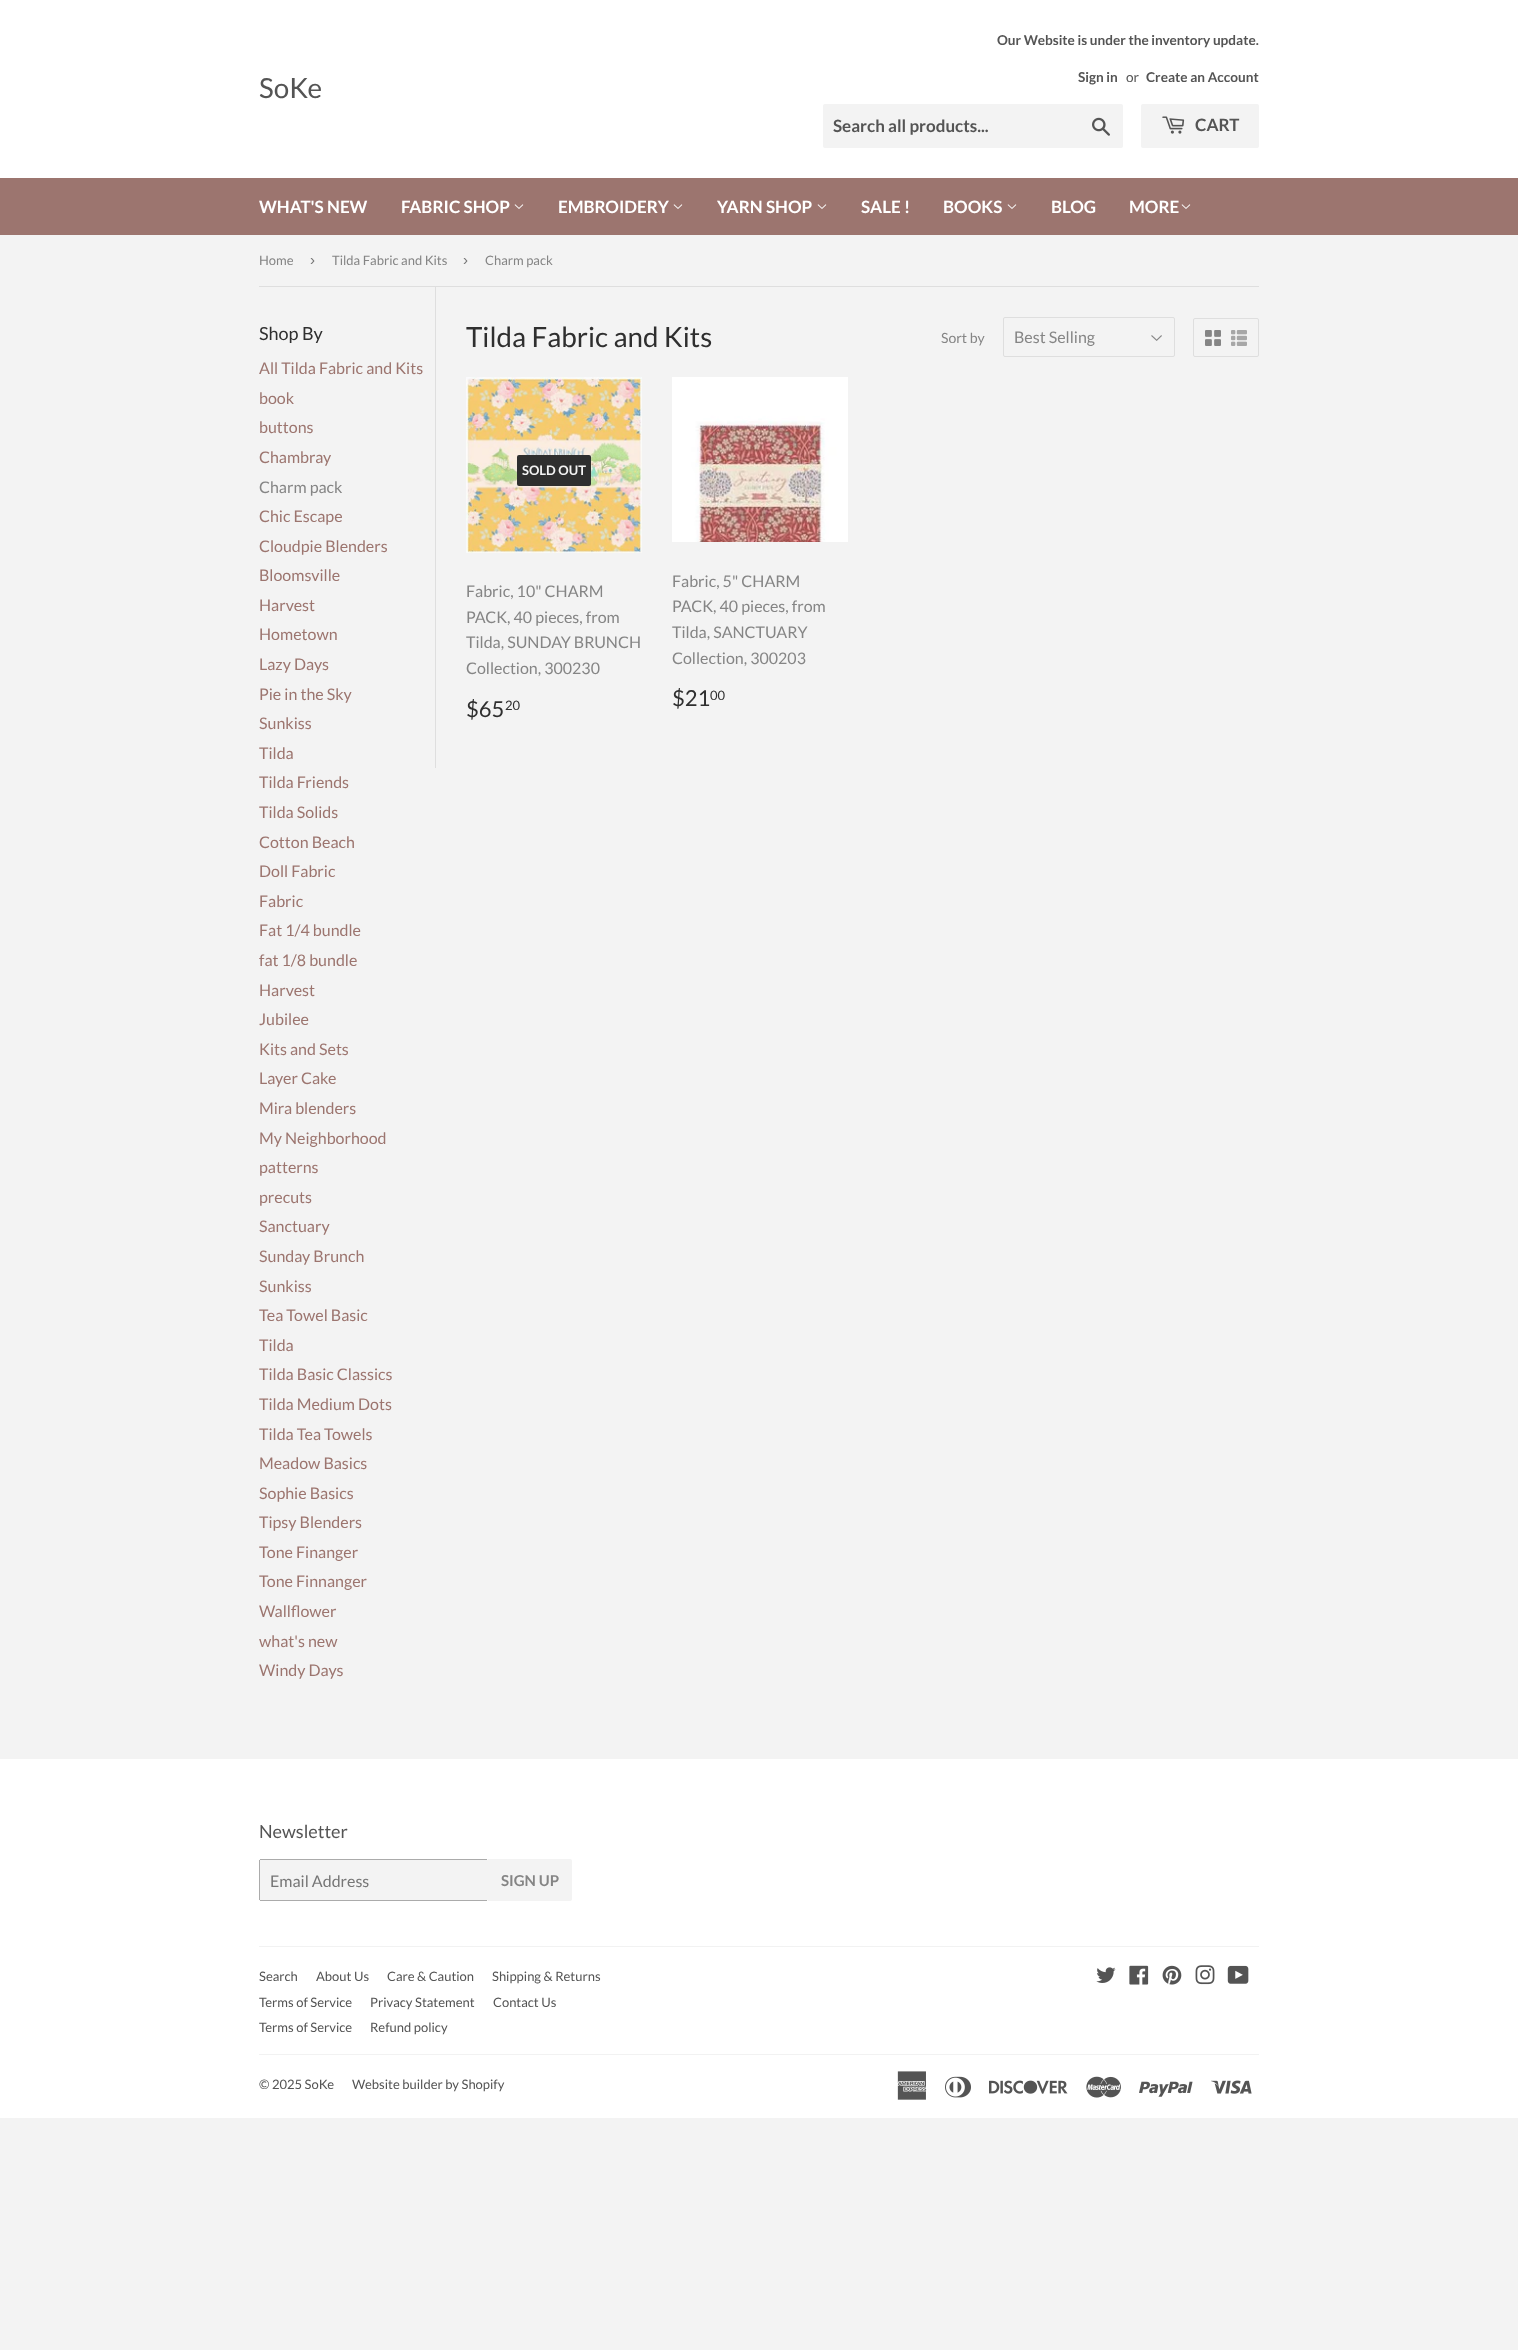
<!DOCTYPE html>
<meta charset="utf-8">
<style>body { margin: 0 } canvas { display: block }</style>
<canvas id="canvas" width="1518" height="2350"></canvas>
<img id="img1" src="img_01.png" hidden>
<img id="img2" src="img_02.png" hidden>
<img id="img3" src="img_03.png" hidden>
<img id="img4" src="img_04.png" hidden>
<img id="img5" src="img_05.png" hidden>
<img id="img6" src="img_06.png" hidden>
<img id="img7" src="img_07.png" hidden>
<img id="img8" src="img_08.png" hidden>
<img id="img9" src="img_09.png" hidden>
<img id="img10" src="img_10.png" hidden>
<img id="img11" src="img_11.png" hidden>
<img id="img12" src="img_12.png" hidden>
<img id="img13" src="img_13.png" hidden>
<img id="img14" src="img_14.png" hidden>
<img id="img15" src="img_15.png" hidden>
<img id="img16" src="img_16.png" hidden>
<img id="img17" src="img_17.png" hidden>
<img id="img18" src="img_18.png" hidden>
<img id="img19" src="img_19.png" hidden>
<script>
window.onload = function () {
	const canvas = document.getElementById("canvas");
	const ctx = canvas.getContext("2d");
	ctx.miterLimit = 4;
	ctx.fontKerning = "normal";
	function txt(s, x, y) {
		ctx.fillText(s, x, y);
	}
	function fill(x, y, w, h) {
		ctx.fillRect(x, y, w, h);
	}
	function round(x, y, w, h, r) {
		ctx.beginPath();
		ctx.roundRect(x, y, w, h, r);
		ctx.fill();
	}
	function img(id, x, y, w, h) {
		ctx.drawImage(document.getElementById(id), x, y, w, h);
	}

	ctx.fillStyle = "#F3F3F3";
	fill(0, 0, 1518, 2350);
	ctx.fillStyle = "#FFFFFF";
	fill(0, 0, 1518, 178);
	ctx.fillStyle = "#F3F3F3";
	round(823, 104, 300, 44, 2);
	img("img1", 1092, 117, 18, 19);
	round(1141, 104, 118, 44, 2);
	img("img2", 1162, 116, 23, 18);
	ctx.fillStyle = "#9C756F";
	fill(0, 178, 1518, 57);
	img("img3", 514, 204, 10, 5);
	img("img3", 673, 204, 10, 5);
	img("img3", 817, 204, 10, 5);
	img("img3", 1007, 204, 10, 5);
	img("img3", 1181, 204, 10, 5);
	ctx.fillStyle = "#DEDEDE";
	fill(259, 286, 1000, 1);
	fill(435, 287, 1, 481);
	img("img4", 1151, 335, 11, 6);
	ctx.beginPath();
	ctx.roundRect(1003.5, 317.5, 171, 39, 1.5);
	ctx.strokeStyle = "#DEDEDE";
	ctx.stroke();
	ctx.beginPath();
	ctx.roundRect(1193.5, 318.5, 65, 38, 1.5);
	ctx.stroke();
	img("img5", 1205, 330, 16, 16);
	img("img6", 1231, 330, 16, 16);
	img("img7", 466, 377, 176, 176);
	ctx.fillStyle = "#2F2F2F";
	round(517, 455, 74, 31, 2);
	img("img8", 672, 377, 176, 165);
	ctx.fillStyle = "#FFFFFF";
	fill(0, 1759, 1518, 359);
	ctx.fillStyle = "#F3F3F3";
	round(259, 1859, 229, 42, 2);
	ctx.fillStyle = "#ABABAB";
	fill(260, 1859, 227, 1);
	fill(260, 1900, 227, 1);
	fill(259, 1860, 1, 40);
	ctx.fillStyle = "#F3F3F3";
	ctx.beginPath();
	ctx.roundRect(488, 1859, 84, 42, [0, 2, 2, 0]);
	ctx.fill();
	ctx.fillStyle = "#F2F2F2";
	fill(259, 1946, 1000, 1);
	img("img9", 1096, 1967, 20, 16);
	img("img10", 1129, 1965, 20, 20);
	img("img11", 1162, 1965, 20, 20);
	img("img12", 1195, 1965, 20, 20);
	img("img13", 1227, 1965, 22, 19);
	fill(259, 2054, 1000, 1);
	img("img14", 897, 2071, 30, 29);
	img("img15", 945, 2076, 26, 22);
	img("img16", 989, 2080, 79, 14);
	img("img17", 1086, 2076, 35, 22);
	img("img18", 1139, 2081, 54, 16);
	img("img19", 1211, 2080, 41, 14);
	ctx.font = "27.75px Lato";
	ctx.fillStyle = "#545454";
	txt("SoKe", 259, 98);
	ctx.font = "bold 13.6px Lato";
	txt("Our Website is under the inventory update.", 997, 45);
	txt("Sign in", 1078, 82);
	ctx.font = "13.6px Lato";
	txt("or", 1126, 82);
	ctx.font = "bold 13.6px Lato";
	txt("Create an Account", 1146, 82);
	ctx.font = "bold 17px Lato";
	txt("Search all products...", 833, 132);
	txt("CART", 1195, 131);
	ctx.fillStyle = "#FFFFFF";
	txt("WHAT'S NEW", 259, 213);
	txt("FABRIC SHOP", 401, 213);
	txt("EMBROIDERY", 558, 213);
	txt("YARN SHOP", 717, 213);
	txt("SALE !", 861, 213);
	txt("BOOKS", 943, 213);
	txt("BLOG", 1051, 213);
	txt("MORE", 1129, 213);
	ctx.font = "13px Lato";
	ctx.fillStyle = "#858585";
	txt("Home", 259, 265);
	ctx.font = "15px Liberation Sans";
	ctx.fillStyle = "#767676";
	txt("›", 310, 265);
	ctx.font = "13px Lato";
	ctx.fillStyle = "#858585";
	txt("Tilda Fabric and Kits", 332, 265);
	ctx.font = "15px Liberation Sans";
	ctx.fillStyle = "#767676";
	txt("›", 463, 265);
	ctx.font = "13px Lato";
	ctx.fillStyle = "#858585";
	txt("Charm pack", 485, 265);
	ctx.font = "18px Lato";
	ctx.fillStyle = "#2F2F2F";
	txt("Shop By", 259, 340);
	ctx.font = "16px Lato";
	ctx.fillStyle = "#9C756F";
	txt("All Tilda Fabric and Kits", 259, 374);
	txt("book", 259, 404);
	txt("buttons", 259, 433);
	txt("Chambray", 259, 463);
	ctx.fillStyle = "#858585";
	txt("Charm pack", 259, 493);
	ctx.fillStyle = "#9C756F";
	txt("Chic Escape", 259, 522);
	txt("Cloudpie Blenders", 259, 552);
	txt("Bloomsville", 259, 581);
	txt("Harvest", 259, 611);
	txt("Hometown", 259, 640);
	txt("Lazy Days", 259, 670);
	txt("Pie in the Sky", 259, 700);
	txt("Sunkiss", 259, 729);
	txt("Tilda", 259, 759);
	txt("Tilda Friends", 259, 788);
	txt("Tilda Solids", 259, 818);
	txt("Cotton Beach", 259, 848);
	txt("Doll Fabric", 259, 877);
	txt("Fabric", 259, 907);
	txt("Fat 1/4 bundle", 259, 936);
	txt("fat 1/8 bundle", 259, 966);
	txt("Harvest", 259, 996);
	txt("Jubilee", 259, 1025);
	txt("Kits and Sets", 259, 1055);
	txt("Layer Cake", 259, 1084);
	txt("Mira blenders", 259, 1114);
	txt("My Neighborhood", 259, 1144);
	txt("patterns", 259, 1173);
	txt("precuts", 259, 1203);
	txt("Sanctuary", 259, 1232);
	txt("Sunday Brunch", 259, 1262);
	txt("Sunkiss", 259, 1292);
	txt("Tea Towel Basic", 259, 1321);
	txt("Tilda", 259, 1351);
	txt("Tilda Basic Classics", 259, 1380);
	txt("Tilda Medium Dots", 259, 1410);
	txt("Tilda Tea Towels", 259, 1440);
	txt("Meadow Basics", 259, 1469);
	txt("Sophie Basics", 259, 1499);
	txt("Tipsy Blenders", 259, 1528);
	txt("Tone Finanger", 259, 1558);
	txt("Tone Finnanger", 259, 1587);
	txt("Wallflower", 259, 1617);
	txt("what's new", 259, 1647);
	txt("Windy Days", 259, 1676);
	ctx.font = "27.75px Lato";
	ctx.fillStyle = "#2F2F2F";
	txt("Tilda Fabric and Kits", 466, 347);
	ctx.font = "14px Lato";
	ctx.fillStyle = "#858585";
	txt("Sort by", 941, 343);
	ctx.font = "16px Lato";
	txt("Best Selling", 1014, 343);
	ctx.font = "bold 13px Lato";
	ctx.fillStyle = "#F3F3F3";
	txt("SOLD OUT", 522, 475);
	ctx.font = "16px Lato";
	ctx.fillStyle = "#858585";
	txt("Fabric, 10\" CHARM", 466, 597);
	txt("PACK, 40 pieces, from", 466, 623);
	txt("Tilda, SUNDAY BRUNCH", 466, 648);
	txt("Collection, 300230", 466, 674);
	ctx.font = "22px Lato";
	ctx.fillStyle = "#2F2F2F";
	txt("$65", 466, 717);
	ctx.font = "13px Lato";
	txt("20", 505, 710);
	ctx.font = "16px Lato";
	ctx.fillStyle = "#858585";
	txt("Fabric, 5\" CHARM", 672, 587);
	txt("PACK, 40 pieces, from", 672, 612);
	txt("Tilda, SANCTUARY", 672, 638);
	txt("Collection, 300203", 672, 664);
	ctx.font = "22px Lato";
	ctx.fillStyle = "#2F2F2F";
	txt("$21", 672, 706);
	ctx.font = "13px Lato";
	txt("00", 710, 700);
	ctx.font = "18px Lato";
	ctx.fillStyle = "#545454";
	txt("Newsletter", 259, 1838);
	ctx.font = "16px Lato";
	ctx.fillStyle = "#767676";
	txt("Email Address", 270, 1887);
	ctx.font = "bold 15px Lato";
	ctx.fillStyle = "#858585";
	txt("SIGN UP", 501, 1886);
	ctx.font = "13px Lato";
	ctx.fillStyle = "#545454";
	txt("Search", 259, 1981);
	txt("About Us", 316, 1981);
	txt("Care & Caution", 387, 1981);
	txt("Shipping & Returns", 492, 1981);
	txt("Terms of Service", 259, 2007);
	txt("Privacy Statement", 370, 2007);
	txt("Contact Us", 493, 2007);
	txt("Terms of Service", 259, 2032);
	txt("Refund policy", 370, 2032);
	txt("© 2025 SoKe", 259, 2089);
	txt("Website builder by Shopify", 352, 2089);
};
</script>
